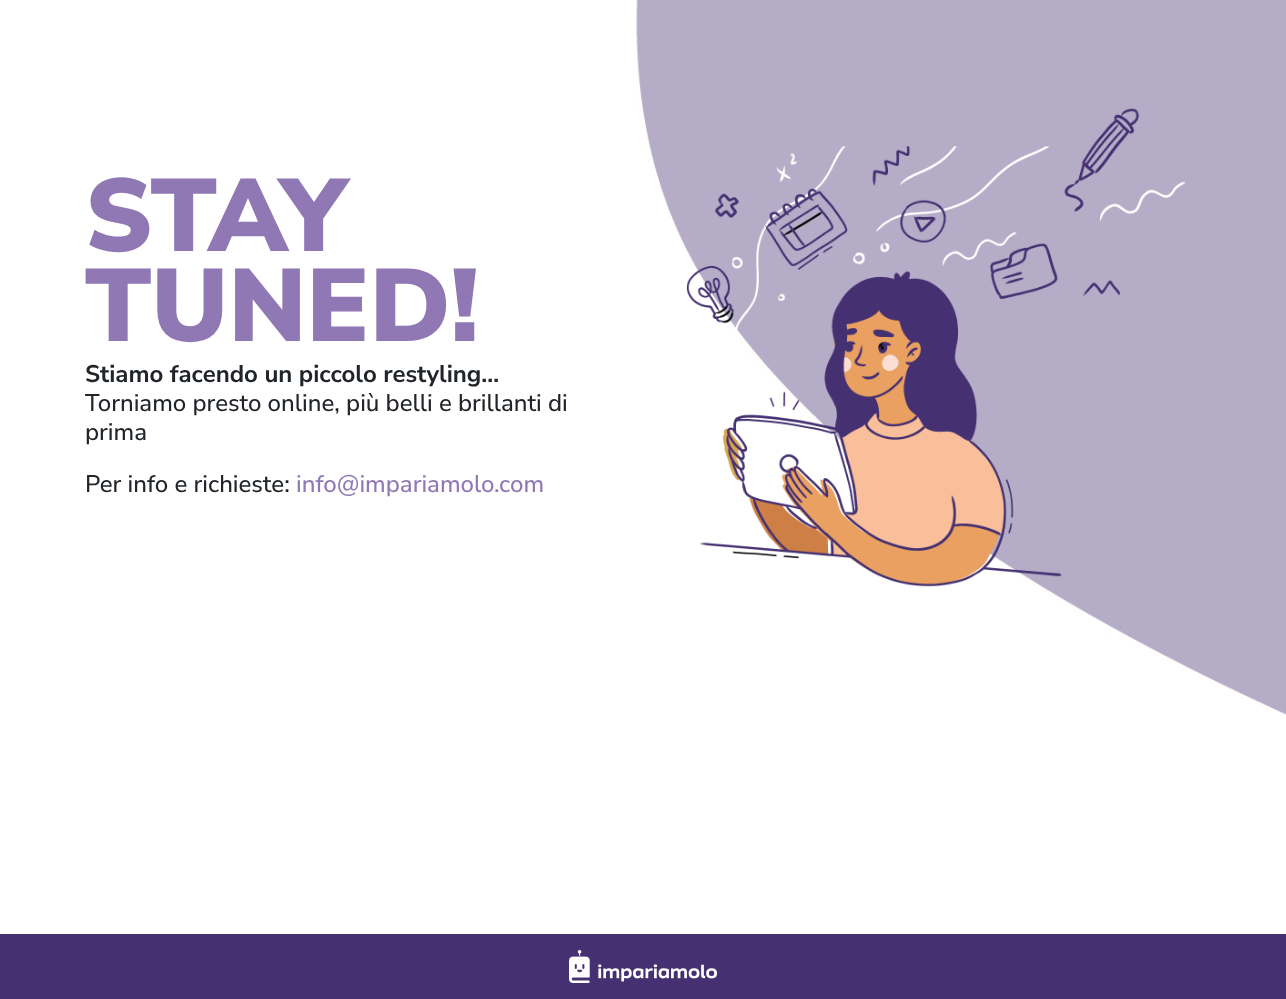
<!DOCTYPE html>
<meta charset="utf-8">
<style>body { margin: 0 } canvas { display: block }</style>
<canvas id="canvas" width="1286" height="999"></canvas>
<img id="img1" src="img_01.png" hidden>
<img id="img2" src="img_02.png" hidden>
<img id="img3" src="img_03.png" hidden>
<script>
window.onload = function () {
	const canvas = document.getElementById("canvas");
	const ctx = canvas.getContext("2d");
	ctx.miterLimit = 4;
	ctx.fontKerning = "normal";
	function txt(s, x, y) {
		ctx.fillText(s, x, y);
	}
	function fill(x, y, w, h) {
		ctx.fillRect(x, y, w, h);
	}
	function img(id, x, y, w, h) {
		ctx.drawImage(document.getElementById(id), x, y, w, h);
	}

	ctx.fillStyle = "#FFFFFF";
	fill(0, 0, 1286, 999);
	img("img1", 636, 0, 650, 715);
	img("img2", 686, 108, 500, 479);
	ctx.fillStyle = "#453171";
	fill(0, 934, 1286, 65);
	img("img3", 569, 950, 148, 33);
	ctx.font = "900 103px Nunito Sans";
	ctx.fillStyle = "#9078B5";
	txt("STAY", 85, 251);
	txt("TUNED!", 85, 341);
	ctx.font = "bold 24px Nunito Sans";
	ctx.fillStyle = "#212529";
	txt("Stiamo facendo un piccolo restyling…", 85, 382);
	ctx.font = "500 24px Nunito Sans";
	txt("Torniamo presto online, più belli e brillanti di", 85, 411);
	txt("prima", 85, 440);
	txt("Per info e richieste:", 85, 492);
	ctx.fillStyle = "#9078B5";
	txt("info@impariamolo.com", 296, 492);
};
</script>
